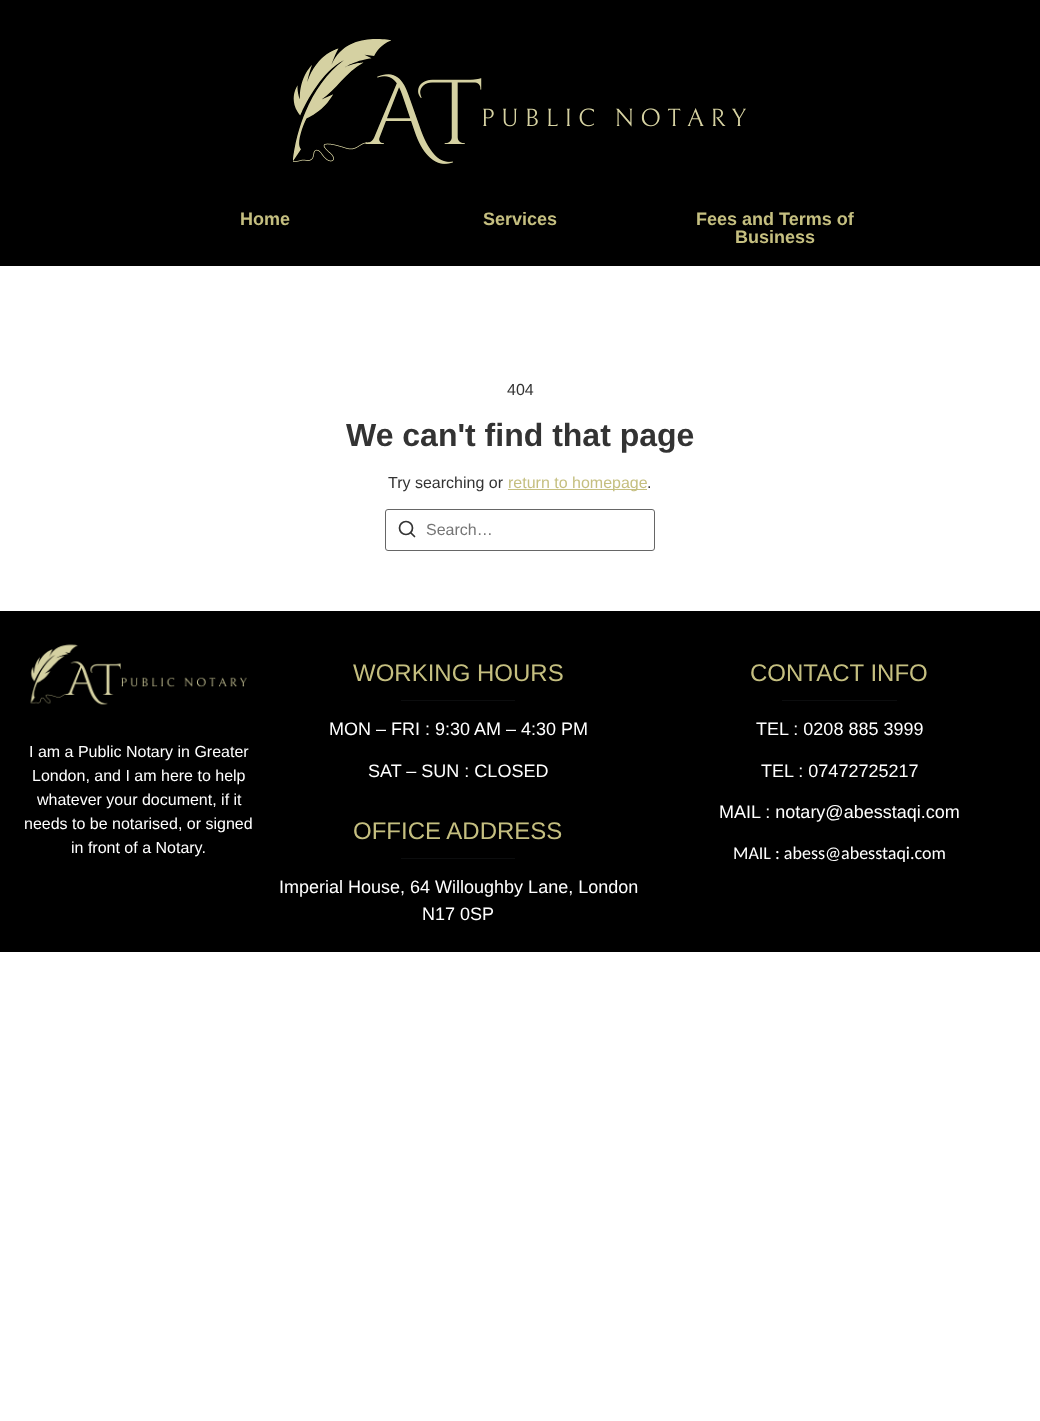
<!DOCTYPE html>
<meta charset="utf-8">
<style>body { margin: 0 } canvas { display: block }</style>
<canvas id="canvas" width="1040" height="1421"></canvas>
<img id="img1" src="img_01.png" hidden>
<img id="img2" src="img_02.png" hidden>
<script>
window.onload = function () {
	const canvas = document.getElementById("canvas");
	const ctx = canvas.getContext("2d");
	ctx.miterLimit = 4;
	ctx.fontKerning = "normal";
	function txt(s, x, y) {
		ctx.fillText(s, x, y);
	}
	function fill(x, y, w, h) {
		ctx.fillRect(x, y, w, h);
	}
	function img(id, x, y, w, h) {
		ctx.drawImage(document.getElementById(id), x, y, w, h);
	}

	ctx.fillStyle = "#FFFFFF";
	fill(0, 0, 1040, 1421);
	ctx.fillStyle = "#000000";
	fill(0, 0, 1040, 266);
	img("img1", 293, 39, 453, 125);
	ctx.fillStyle = "#C5BF80";
	fill(508, 489, 139, 1);
	ctx.beginPath();
	ctx.roundRect(385.5, 509.5, 269, 41, 2.5);
	ctx.strokeStyle = "#666666";
	ctx.stroke();
	ctx.beginPath();
	ctx.arc(406, 528, 6.5, 0, Math.PI * 2);
	ctx.strokeStyle = "#333333";
	ctx.lineWidth = 1.7;
	ctx.stroke();
	ctx.beginPath();
	ctx.moveTo(414.5, 536.5);
	ctx.lineTo(411, 533);
	ctx.lineCap = "round";
	ctx.lineJoin = "round";
	ctx.stroke();
	ctx.fillStyle = "#000000";
	fill(0, 611, 1040, 341);
	img("img2", 30, 644, 217, 61);
	ctx.fillStyle = "#0C0D0E";
	fill(401, 700, 114, 1);
	fill(401, 858, 114, 1);
	fill(782, 700, 115, 1);
	ctx.font = "bold 18px Liberation Sans";
	ctx.fillStyle = "#C5BF80";
	txt("Home", 240, 225);
	txt("Services", 483, 225);
	txt("Fees and Terms of", 696, 225);
	txt("Business", 735, 243);
	ctx.font = "16px Liberation Sans";
	ctx.fillStyle = "#333333";
	txt("404", 507, 395);
	ctx.font = "bold 32px Liberation Sans";
	txt("We can't find that page", 346, 446);
	ctx.font = "16px Liberation Sans";
	txt("Try searching or", 388, 488);
	ctx.fillStyle = "#C5BF80";
	txt("return to homepage", 508, 488);
	ctx.fillStyle = "#333333";
	txt(".", 647, 488);
	ctx.fillStyle = "#757575";
	txt("Search…", 426, 535);
	ctx.fillStyle = "#FFFFFF";
	txt("I am a Public Notary in Greater", 29, 757);
	txt("London, and I am here to help", 32, 781);
	txt("whatever your document, if it", 37, 805);
	txt("needs to be notarised, or signed", 24, 829);
	txt("in front of a Notary.", 71, 853);
	ctx.font = "24px Liberation Sans";
	ctx.fillStyle = "#C5BF80";
	txt("WORKING HOURS", 353, 681);
	ctx.font = "18px Liberation Sans";
	ctx.fillStyle = "#FFFFFF";
	txt("MON – FRI : 9:30", 329, 735);
	txt("AM – 4:30 PM", 474, 735);
	txt("SAT – SUN : CLOSED", 368, 777);
	ctx.font = "24px Liberation Sans";
	ctx.fillStyle = "#C5BF80";
	txt("OFFICE ADDRESS", 353, 839);
	ctx.font = "18px Liberation Sans";
	ctx.fillStyle = "#FFFFFF";
	txt("Imperial House, 64 Willoughby Lane, London", 279, 893);
	txt("N17 0SP", 422, 920);
	ctx.font = "24px Liberation Sans";
	ctx.fillStyle = "#C5BF80";
	txt("CONTACT INFO", 750, 681);
	ctx.font = "18px Liberation Sans";
	ctx.fillStyle = "#FFFFFF";
	txt("TEL : 0208 885 3999", 756, 735);
	txt("TEL : 07472725217", 761, 777);
	txt("MAIL : notary@abesstaqi.com", 719, 818);
	ctx.font = "18px Carlito";
	txt("MAIL : abess@abesstaqi.com", 733, 859);
};
</script>
